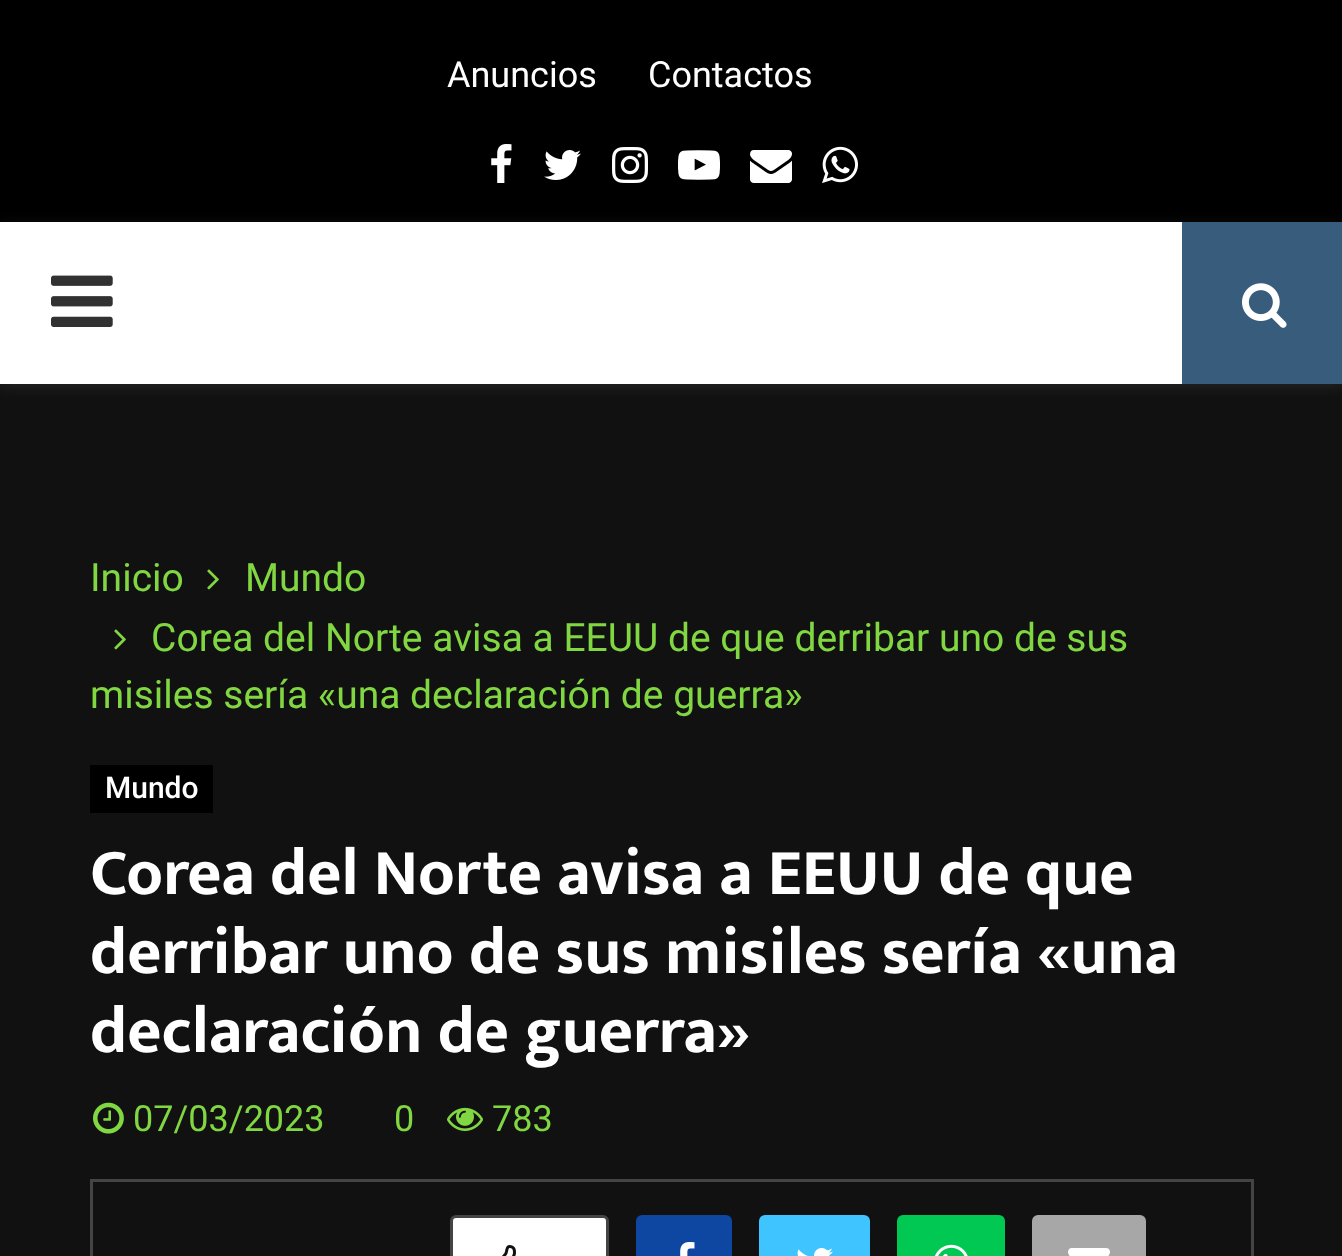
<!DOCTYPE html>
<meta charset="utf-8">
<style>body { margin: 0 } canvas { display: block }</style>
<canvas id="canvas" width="1342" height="1256"></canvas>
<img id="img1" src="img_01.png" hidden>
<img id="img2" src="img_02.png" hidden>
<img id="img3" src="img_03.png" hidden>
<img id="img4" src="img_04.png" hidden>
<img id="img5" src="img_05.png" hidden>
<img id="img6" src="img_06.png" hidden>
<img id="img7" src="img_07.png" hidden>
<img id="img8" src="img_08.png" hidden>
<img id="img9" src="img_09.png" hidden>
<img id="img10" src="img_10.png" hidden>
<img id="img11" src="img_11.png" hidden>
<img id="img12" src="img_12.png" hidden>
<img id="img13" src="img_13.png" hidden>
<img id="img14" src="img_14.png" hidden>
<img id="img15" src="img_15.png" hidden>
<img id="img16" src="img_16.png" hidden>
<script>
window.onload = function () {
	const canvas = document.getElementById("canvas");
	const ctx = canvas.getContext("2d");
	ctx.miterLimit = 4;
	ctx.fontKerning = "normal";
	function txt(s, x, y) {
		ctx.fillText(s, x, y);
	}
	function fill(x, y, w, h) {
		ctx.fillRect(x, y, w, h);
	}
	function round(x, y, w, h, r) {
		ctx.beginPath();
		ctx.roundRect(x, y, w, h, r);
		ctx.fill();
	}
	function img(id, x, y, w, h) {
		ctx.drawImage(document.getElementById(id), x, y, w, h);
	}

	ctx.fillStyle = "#111111";
	fill(0, 0, 1342, 1256);
	ctx.fillStyle = "#000000";
	fill(0, 0, 1342, 222);
	img("img1", 491, 144, 21, 39);
	img("img2", 544, 150, 37, 30);
	img("img3", 612, 147, 36, 36);
	img("img4", 678, 150, 42, 30);
	img("img5", 750, 150, 42, 33);
	img("img6", 822, 146, 36, 38);
	ctx.fillStyle = "rgba(255, 255, 255, 0.08)";
	ctx.filter = "blur(7.5px)";
	ctx.beginPath();
	ctx.rect(0, 225, 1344, 162);
	ctx.fill();
	ctx.filter = "none";
	ctx.fillStyle = "#FFFFFF";
	fill(0, 222, 1182, 162);
	img("img7", 51, 275, 62, 52);
	ctx.fillStyle = "#385C7B";
	fill(1182, 222, 160, 162);
	img("img8", 1242, 283, 45, 45);
	img("img9", 207, 569, 12, 21);
	img("img9", 114, 629, 12, 21);
	ctx.fillStyle = "#000000";
	fill(90, 765, 123, 48);
	img("img10", 93, 1102, 31, 32);
	img("img11", 447, 1107, 36, 24);
	ctx.strokeStyle = "#444444";
	ctx.lineWidth = 3;
	ctx.strokeRect(91.5, 1180.5, 1161, 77);
	ctx.fillStyle = "#FFFFFF";
	ctx.beginPath();
	ctx.roundRect(451.5, 1216.5, 156, 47, 4.5);
	ctx.fill();
	ctx.stroke();
	img("img12", 502, 1245, 14, 11);
	ctx.fillStyle = "#0D47A1";
	round(636, 1215, 96, 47, 6);
	img("img13", 680, 1242, 15, 14);
	ctx.fillStyle = "#40C4FF";
	round(759, 1215, 111, 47, 6);
	img("img14", 797, 1248, 36, 8);
	ctx.fillStyle = "#00C853";
	round(897, 1215, 108, 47, 6);
	img("img15", 935, 1244, 33, 12);
	ctx.fillStyle = "#A7A7A7";
	round(1032, 1215, 114, 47, 6);
	img("img16", 1068, 1248, 42, 8);
	ctx.font = "36px Roboto";
	ctx.fillStyle = "#FFFFFF";
	txt("Anuncios", 447, 87);
	txt("Contactos", 648, 87);
	ctx.font = "39px Roboto";
	ctx.fillStyle = "#81D742";
	txt("Inicio", 90, 591);
	txt("Mundo", 245, 591);
	txt("Corea del Norte avisa a EEUU de que derribar uno de sus", 151, 651);
	txt("misiles sería «una declaración de guerra»", 90, 708);
	ctx.font = "500 30px Roboto";
	ctx.fillStyle = "#FFFFFF";
	txt("Mundo", 105, 798);
	ctx.font = "bold 66px Mukta Vaani";
	txt("Corea del Norte avisa a EEUU de que", 90, 894);
	txt("derribar uno de sus misiles sería «una", 90, 973);
	txt("declaración de guerra»", 90, 1052);
	ctx.font = "36px Roboto";
	ctx.fillStyle = "#81D742";
	txt("07/03/2023", 133, 1131);
	txt("0", 394, 1131);
	txt("783", 492, 1131);
};
</script>
